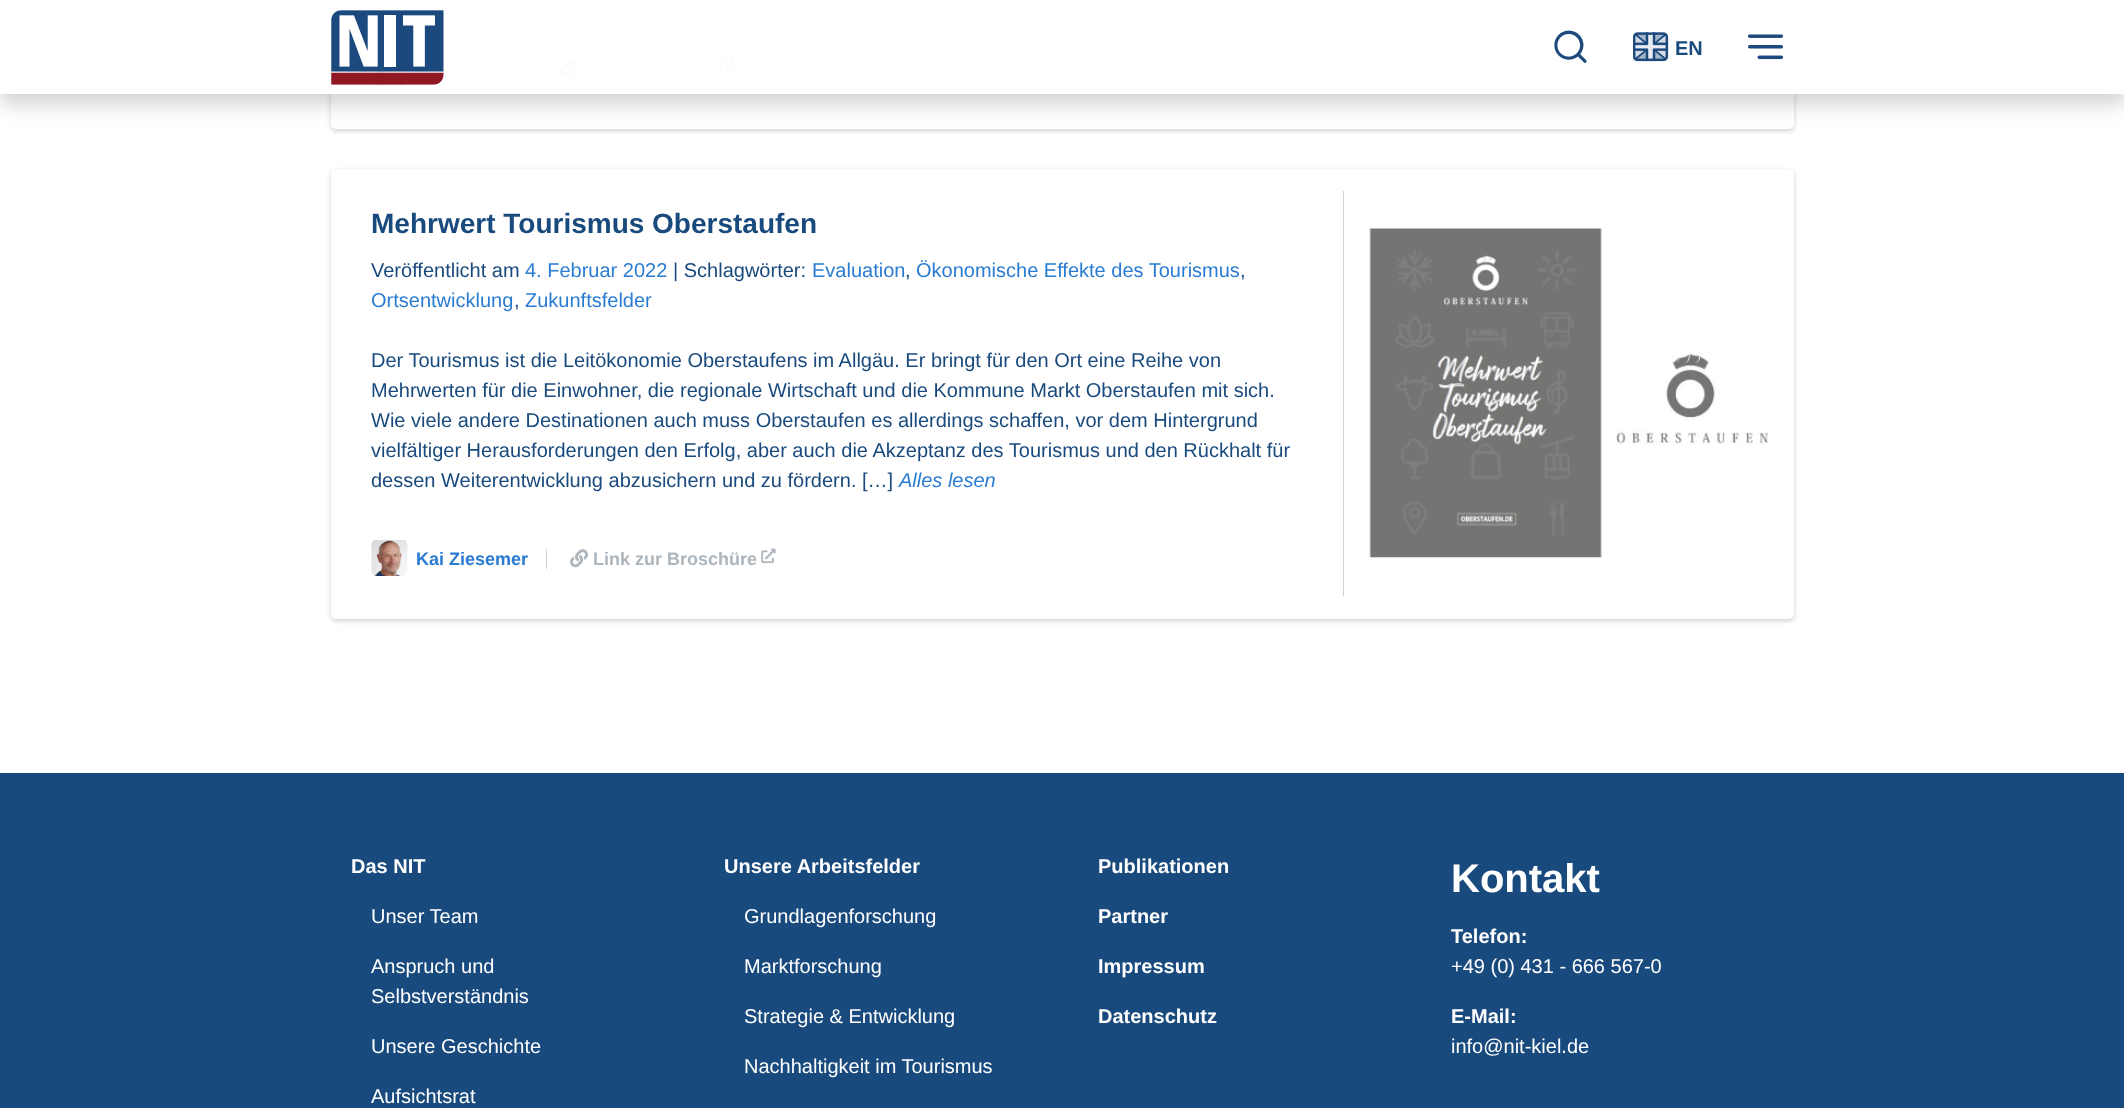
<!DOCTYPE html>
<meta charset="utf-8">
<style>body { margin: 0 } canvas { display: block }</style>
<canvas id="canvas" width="2124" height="1108"></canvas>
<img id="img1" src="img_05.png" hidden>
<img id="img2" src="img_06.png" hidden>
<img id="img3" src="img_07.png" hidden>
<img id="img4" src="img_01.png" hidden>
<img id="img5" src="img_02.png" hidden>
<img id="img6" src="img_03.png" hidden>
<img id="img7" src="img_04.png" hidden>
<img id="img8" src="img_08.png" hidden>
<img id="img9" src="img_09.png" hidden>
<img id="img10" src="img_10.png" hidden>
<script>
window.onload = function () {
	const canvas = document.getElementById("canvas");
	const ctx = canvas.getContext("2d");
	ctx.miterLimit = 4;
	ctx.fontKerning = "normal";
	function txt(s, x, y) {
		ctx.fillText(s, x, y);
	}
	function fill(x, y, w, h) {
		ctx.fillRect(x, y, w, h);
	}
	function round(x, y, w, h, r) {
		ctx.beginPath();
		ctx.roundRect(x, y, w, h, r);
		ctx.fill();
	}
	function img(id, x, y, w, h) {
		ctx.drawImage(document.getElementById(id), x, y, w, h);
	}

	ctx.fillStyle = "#FFFFFF";
	fill(0, 0, 2124, 1108);
	ctx.fillStyle = "rgba(0, 0, 0, 0.18)";
	ctx.filter = "blur(2.5px)";
	ctx.beginPath();
	ctx.roundRect(331, -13, 1463, 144, 5);
	ctx.fill();
	ctx.filter = "none";
	ctx.fillStyle = "#FFFFFF";
	round(331, -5, 1463, 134, 5);
	ctx.fillStyle = "#CED4DA";
	fill(536, 59, 1, 20);
	img("img1", 371, 71, 37, 15);
	img("img2", 560, 59, 18, 19);
	img("img3", 720, 58, 15, 16);
	ctx.save();
	ctx.beginPath();
	ctx.moveTo(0, 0);
	ctx.lineTo(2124, 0);
	ctx.lineTo(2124, 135);
	ctx.lineTo(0, 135);
	ctx.closePath();
	ctx.moveTo(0, 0);
	ctx.lineTo(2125, 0);
	ctx.lineTo(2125, 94);
	ctx.lineTo(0, 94);
	ctx.closePath();
	ctx.clip("evenodd");
	ctx.fillStyle = "rgba(0, 0, 0, 0.18)";
	ctx.filter = "blur(10px)";
	ctx.beginPath();
	ctx.rect(0, 10, 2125, 94);
	ctx.fill();
	ctx.filter = "none";
	ctx.restore();
	ctx.fillStyle = "rgba(255, 255, 255, 0.95)";
	fill(0, 0, 2124, 94);
	img("img4", 331, 10, 113, 75);
	img("img5", 1554, 30, 33, 33);
	img("img6", 1633, 32, 36, 30);
	img("img7", 1748, 34, 36, 26);
	ctx.fillStyle = "rgba(0, 0, 0, 0.18)";
	ctx.filter = "blur(2.5px)";
	ctx.beginPath();
	ctx.roundRect(331, 171, 1463, 450, 5);
	ctx.fill();
	ctx.filter = "none";
	ctx.fillStyle = "#FFFFFF";
	round(331, 169, 1463, 450, 5);
	ctx.fillStyle = "#CED4DA";
	fill(546, 549, 1, 20);
	img("img8", 371, 540, 37, 36);
	img("img2", 570, 549, 18, 19);
	img("img9", 761, 548, 15, 16);
	fill(1343, 191, 1, 405);
	img("img10", 1369, 228, 401, 330);
	ctx.fillStyle = "#194A7E";
	fill(0, 773, 2124, 335);
	ctx.font = "bold 20px Liberation Sans";
	txt("EN", 1675, 55);
	ctx.font = "bold 28px Liberation Sans";
	txt("Mehrwert Tourismus Oberstaufen", 371, 233);
	ctx.font = "20px Liberation Sans";
	txt("Veröffentlicht am", 371, 277);
	ctx.fillStyle = "#2A7CD3";
	txt("4. Februar 2022", 525, 277);
	ctx.fillStyle = "#194A7E";
	txt("| Schlagwörter:", 673, 277);
	ctx.fillStyle = "#2A7CD3";
	txt("Evaluation", 812, 277);
	ctx.fillStyle = "#194A7E";
	txt(",", 905, 277);
	ctx.fillStyle = "#2A7CD3";
	txt("Ökonomische Effekte des Tourismus", 916, 277);
	ctx.fillStyle = "#194A7E";
	txt(",", 1240, 277);
	ctx.fillStyle = "#2A7CD3";
	txt("Ortsentwicklung", 371, 307);
	ctx.fillStyle = "#194A7E";
	txt(",", 514, 307);
	ctx.fillStyle = "#2A7CD3";
	txt("Zukunftsfelder", 525, 307);
	ctx.fillStyle = "#194A7E";
	txt("Der Tourismus ist die Leitökonomie Oberstaufens im Allgäu. Er bringt für den Ort eine Reihe von", 371, 367);
	txt("Mehrwerten für die Einwohner, die regionale Wirtschaft und die Kommune Markt Oberstaufen mit sich.", 371, 397);
	txt("Wie viele andere Destinationen auch muss Oberstaufen es allerdings schaffen, vor dem Hintergrund", 371, 427);
	txt("vielfältiger Herausforderungen den Erfolg, aber auch die Akzeptanz des Tourismus und den Rückhalt für", 371, 457);
	txt("dessen Weiterentwicklung abzusichern und zu fördern. […]", 371, 487);
	ctx.font = "italic 20px Liberation Sans";
	ctx.fillStyle = "#2A7CD3";
	txt("Alles lesen", 899, 487);
	ctx.font = "bold 18px Liberation Sans";
	txt("Kai Ziesemer", 416, 565);
	ctx.fillStyle = "#ADB5BD";
	txt("Link zur Broschüre", 593, 565);
	ctx.font = "bold 20px Liberation Sans";
	ctx.fillStyle = "#FFFFFF";
	txt("Das NIT", 351, 873);
	ctx.font = "20px Liberation Sans";
	txt("Unser Team", 371, 923);
	txt("Anspruch und", 371, 973);
	txt("Selbstverständnis", 371, 1003);
	txt("Unsere Geschichte", 371, 1053);
	txt("Aufsichtsrat", 371, 1103);
	ctx.font = "bold 20px Liberation Sans";
	txt("Unsere Arbeitsfelder", 724, 873);
	ctx.font = "20px Liberation Sans";
	txt("Grundlagenforschung", 744, 923);
	txt("Marktforschung", 744, 973);
	txt("Strategie & Entwicklung", 744, 1023);
	txt("Nachhaltigkeit im Tourismus", 744, 1073);
	ctx.font = "bold 20px Liberation Sans";
	txt("Publikationen", 1098, 873);
	txt("Partner", 1098, 923);
	txt("Impressum", 1098, 973);
	txt("Datenschutz", 1098, 1023);
	ctx.font = "bold 40px Liberation Sans";
	txt("Kontakt", 1451, 892);
	ctx.font = "bold 20px Liberation Sans";
	txt("Telefon:", 1451, 943);
	ctx.font = "20px Liberation Sans";
	txt("+49 (0) 431 - 666 567-0", 1451, 973);
	ctx.font = "bold 20px Liberation Sans";
	txt("E-Mail:", 1451, 1023);
	ctx.font = "20px Liberation Sans";
	txt("info@nit-kiel.de", 1451, 1053);
};
</script>
